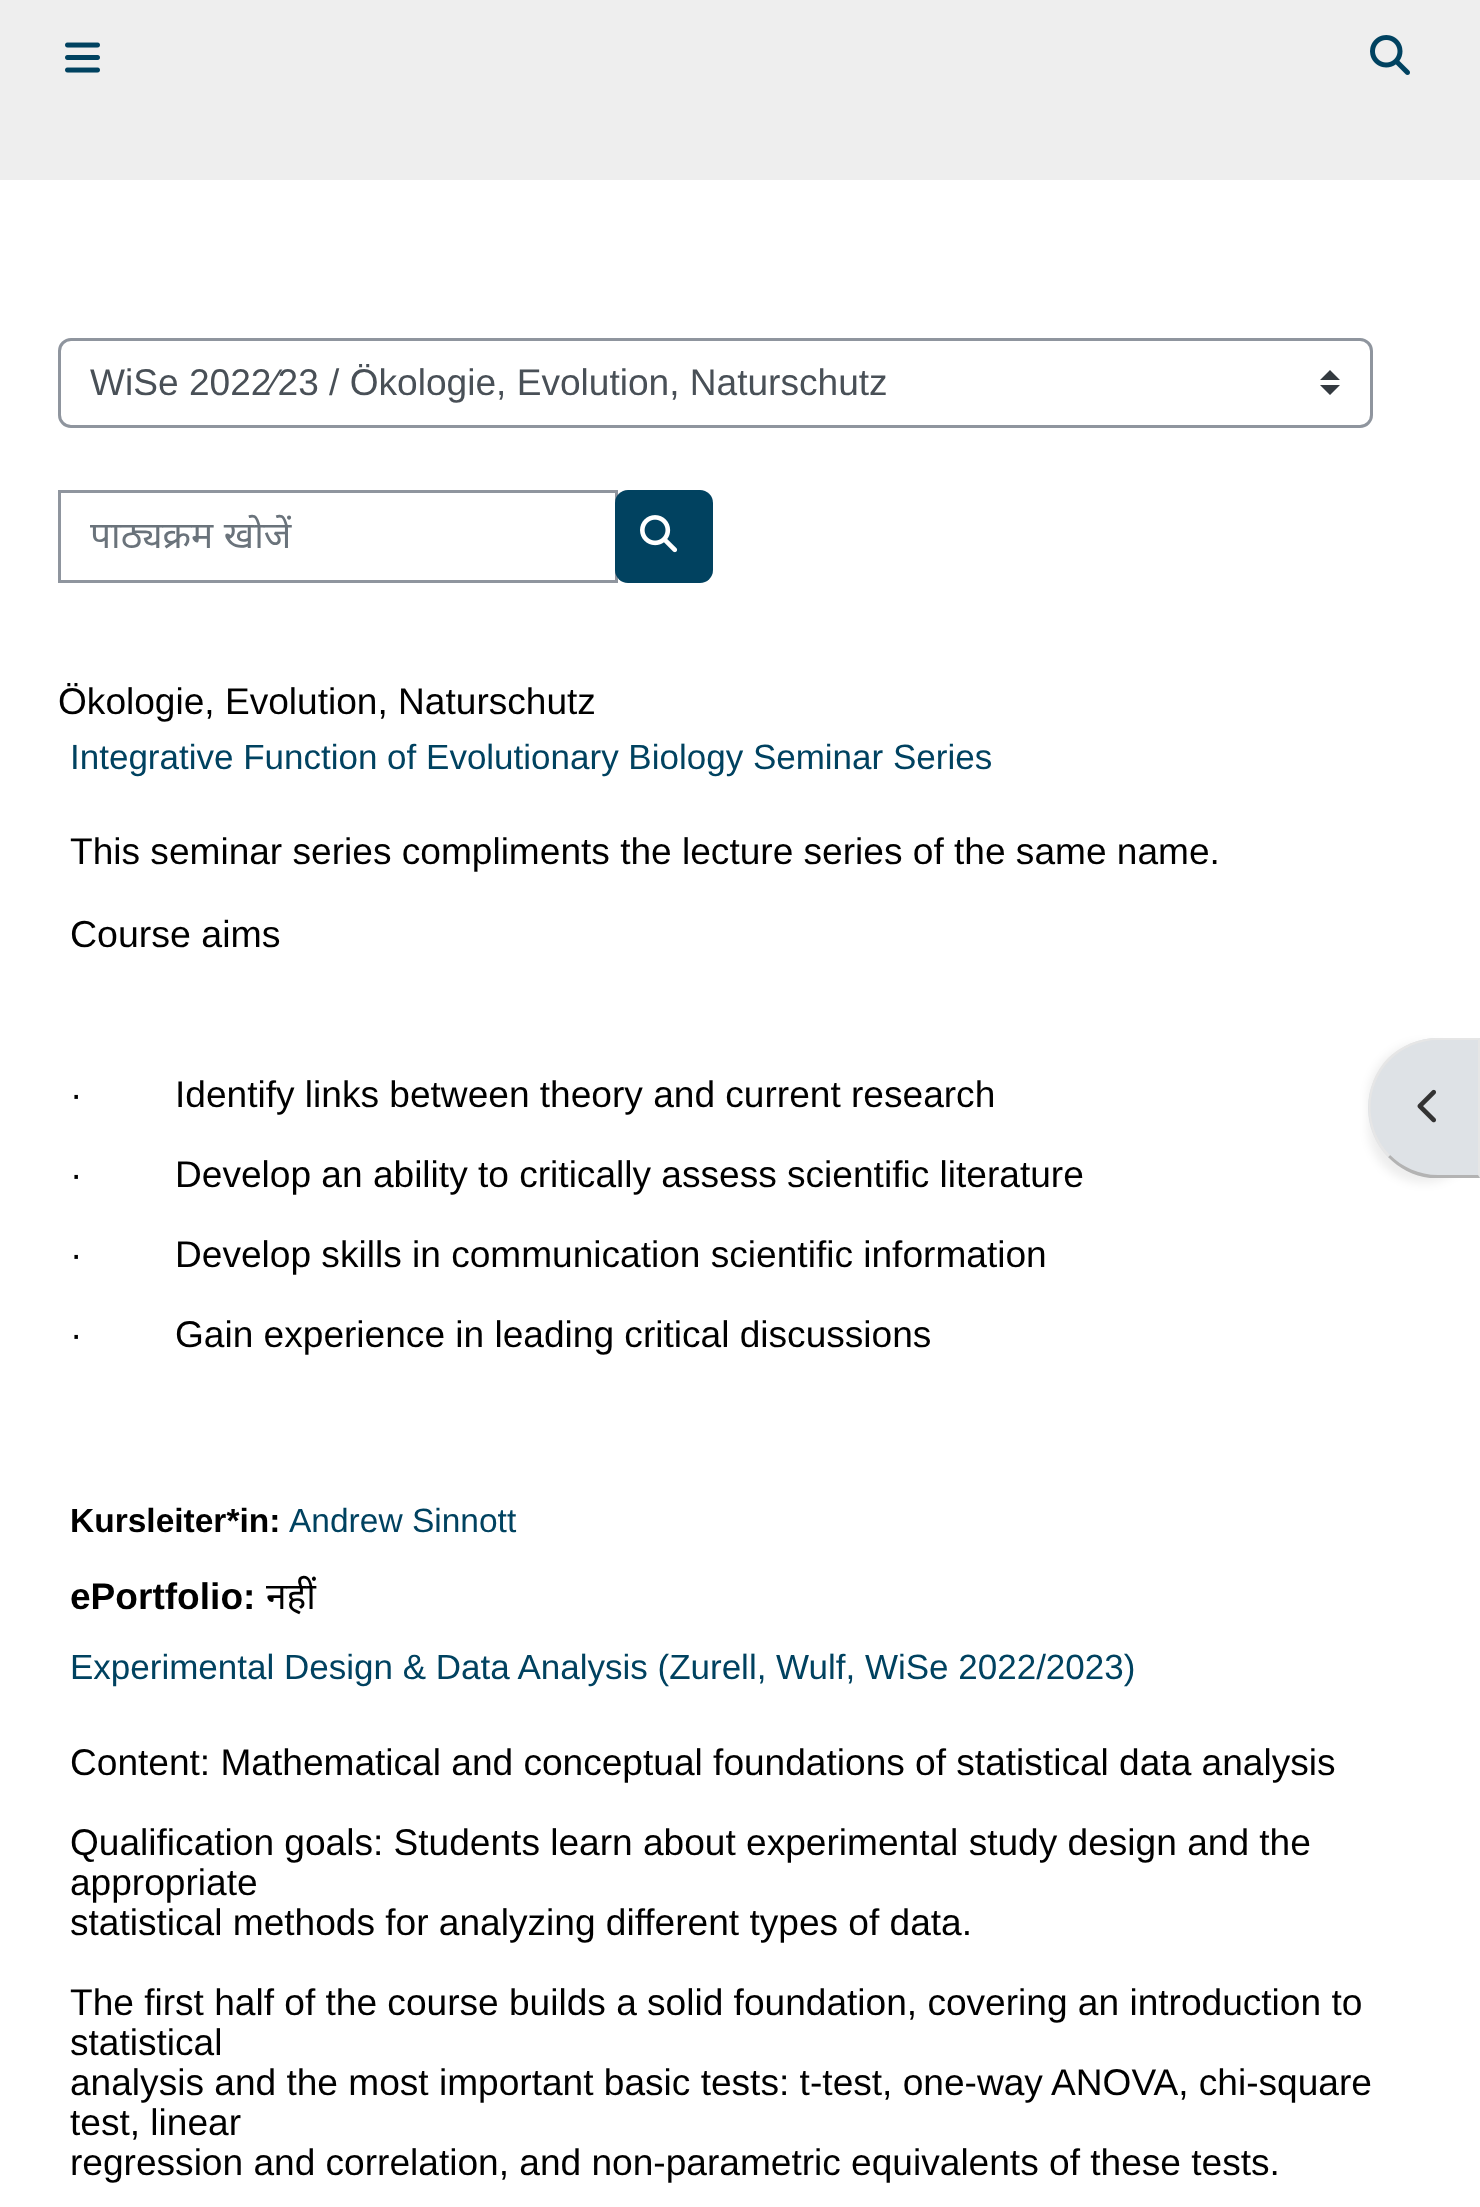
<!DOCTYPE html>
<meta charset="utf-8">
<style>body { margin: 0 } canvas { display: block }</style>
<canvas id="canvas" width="1480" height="2207"></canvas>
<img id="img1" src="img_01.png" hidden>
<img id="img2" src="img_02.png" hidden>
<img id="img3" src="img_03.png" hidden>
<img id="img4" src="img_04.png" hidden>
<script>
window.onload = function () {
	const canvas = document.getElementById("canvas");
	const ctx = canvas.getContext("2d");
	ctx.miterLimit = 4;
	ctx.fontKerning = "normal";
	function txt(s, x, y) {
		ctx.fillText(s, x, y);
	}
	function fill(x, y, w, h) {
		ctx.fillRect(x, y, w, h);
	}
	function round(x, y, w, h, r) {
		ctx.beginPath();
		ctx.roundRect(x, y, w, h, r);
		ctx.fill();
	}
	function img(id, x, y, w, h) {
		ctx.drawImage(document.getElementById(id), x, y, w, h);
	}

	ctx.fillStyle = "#FFFFFF";
	fill(0, 0, 1480, 2207);
	ctx.fillStyle = "#EEEEEE";
	fill(0, 0, 1480, 180);
	img("img1", 65, 42, 35, 31);
	img("img2", 1370, 35, 40, 40);
	ctx.fillStyle = "#343A40";
	ctx.beginPath();
	ctx.moveTo(1330, 370);
	ctx.lineTo(1320, 380);
	ctx.lineTo(1340, 380);
	ctx.closePath();
	ctx.moveTo(1330, 395);
	ctx.lineTo(1320, 385);
	ctx.lineTo(1340, 385);
	ctx.closePath();
	ctx.fill();
	ctx.beginPath();
	ctx.roundRect(59.5, 339.5, 1312, 87, 11.5);
	ctx.strokeStyle = "#8F959E";
	ctx.lineWidth = 3;
	ctx.stroke();
	ctx.strokeRect(59.5, 491.5, 557, 90);
	ctx.fillStyle = "#014260";
	round(615, 490, 98, 93, 13);
	img("img3", 640, 515, 38, 38);
	ctx.fillStyle = "rgba(0, 0, 0, 0.07)";
	ctx.filter = "blur(5px)";
	ctx.beginPath();
	ctx.roundRect(1368, 1043, 112, 140, 70);
	ctx.fill();
	ctx.filter = "none";
	ctx.fillStyle = "#DEE2E6";
	ctx.beginPath();
	ctx.roundRect(1368, 1038, 112, 140, [70, 0, 0, 70]);
	ctx.fill();
	ctx.fillStyle = "#E6E6E6";
	ctx.beginPath();
	ctx.moveTo(1438, 1038);
	ctx.bezierCurveTo(1418, 1038, 1401, 1046, 1388, 1058);
	ctx.lineTo(1390, 1060);
	ctx.bezierCurveTo(1402, 1048, 1419, 1040, 1438, 1040);
	ctx.lineTo(1478, 1040);
	ctx.lineTo(1480, 1038);
	ctx.closePath();
	ctx.fill();
	ctx.beginPath();
	ctx.moveTo(1480, 1178);
	ctx.lineTo(1480, 1038);
	ctx.lineTo(1478, 1040);
	ctx.lineTo(1478, 1175);
	ctx.closePath();
	ctx.fill();
	ctx.fillStyle = "#B3B3B3";
	ctx.beginPath();
	ctx.moveTo(1480, 1178);
	ctx.lineTo(1430, 1178);
	ctx.bezierCurveTo(1413, 1176, 1399, 1168, 1388, 1157);
	ctx.lineTo(1390, 1155);
	ctx.bezierCurveTo(1402, 1167, 1419, 1175, 1438, 1175);
	ctx.lineTo(1478, 1175);
	ctx.closePath();
	ctx.fill();
	ctx.fillStyle = "#E6E6E6";
	ctx.beginPath();
	ctx.moveTo(1388, 1058);
	ctx.bezierCurveTo(1362, 1085, 1362, 1130, 1388, 1157);
	ctx.lineTo(1390, 1155);
	ctx.bezierCurveTo(1364, 1129, 1364, 1086, 1390, 1060);
	ctx.closePath();
	ctx.fill();
	img("img4", 1417, 1089, 19, 34);
	ctx.font = "37.1px Liberation Sans";
	ctx.fillStyle = "#495057";
	txt("WiSe 2022∕23 / Ökologie, Evolution, Naturschutz", 90, 395);
	ctx.wordSpacing = "1px";
	ctx.font = "37.1px Noto Sans";
	ctx.fillStyle = "#6A737B";
	txt("पाठ्यक्रम खोजें", 90, 548);
	ctx.save();
	ctx.beginPath();
	ctx.rect(58, 683, 1365, 40);
	ctx.clip();
	ctx.wordSpacing = "0px";
	ctx.font = "37.1px Liberation Sans";
	ctx.fillStyle = "#000000";
	txt("Ökologie, Evolution, Naturschutz", 58, 714);
	ctx.restore();
	ctx.wordSpacing = "0px";
	ctx.font = "35px Liberation Sans";
	ctx.fillStyle = "#004260";
	txt("Integrative Function of Evolutionary Biology Seminar Series", 70, 769);
	ctx.font = "37.1px Liberation Sans";
	ctx.fillStyle = "#000000";
	txt("This seminar series compliments the lecture series of the same name.", 70, 864);
	ctx.font = "37.5px Liberation Sans";
	txt("Course aims", 70, 947);
	ctx.font = "37.1px Liberation Sans";
	txt("·", 70, 1107);
	txt("Identify links between theory and current research", 175, 1107);
	txt("·", 70, 1187);
	txt("Develop an ability to critically assess scientific literature", 175, 1187);
	txt("·", 70, 1267);
	txt("Develop skills in communication scientific information", 175, 1267);
	txt("·", 70, 1347);
	txt("Gain experience in leading critical discussions", 175, 1347);
	ctx.font = "bold 33.5px Liberation Sans";
	txt("Kursleiter*in:", 70, 1532);
	ctx.font = "33.5px Liberation Sans";
	ctx.fillStyle = "#004260";
	txt("Andrew Sinnott", 289, 1532);
	ctx.font = "bold 37.1px Liberation Sans";
	ctx.fillStyle = "#000000";
	txt("ePortfolio:", 70, 1609);
	ctx.font = "37.1px Noto Sans";
	txt("नहीं", 266, 1609);
	ctx.font = "35px Liberation Sans";
	ctx.fillStyle = "#004260";
	txt("Experimental Design & Data Analysis (Zurell, Wulf, WiSe 2022/2023)", 70, 1679);
	ctx.font = "37.1px Liberation Sans";
	ctx.fillStyle = "#000000";
	txt("Content: Mathematical and conceptual foundations of statistical data analysis", 70, 1775);
	txt("Qualification goals: Students learn about experimental study design and the", 70, 1855);
	txt("appropriate", 70, 1895);
	txt("statistical methods for analyzing different types of data.", 70, 1935);
	txt("The first half of the course builds a solid foundation, covering an introduction to", 70, 2015);
	txt("statistical", 70, 2055);
	txt("analysis and the most important basic tests: t", 70, 2095);
	txt("-test, one-way ANOVA, chi-square", 810, 2095);
	txt("test, linear", 70, 2135);
	txt("regression and correlation, and non-parametric equivalents of these tests.", 70, 2175);
};
</script>
